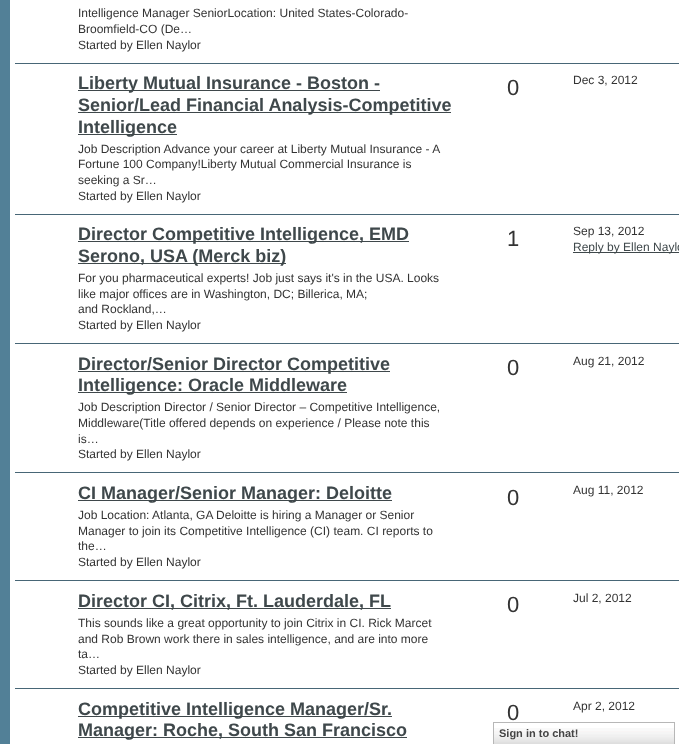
<!DOCTYPE html>
<meta charset="utf-8">
<style>body { margin: 0 } canvas { display: block }</style>
<canvas id="canvas" width="679" height="744"></canvas>
<img id="img1" src="img_01.png" hidden>
<script>
window.onload = function () {
	const canvas = document.getElementById("canvas");
	const ctx = canvas.getContext("2d");
	ctx.miterLimit = 4;
	ctx.fontKerning = "normal";
	function txt(s, x, y) {
		ctx.fillText(s, x, y);
	}
	function fill(x, y, w, h) {
		ctx.fillRect(x, y, w, h);
	}
	function img(id, x, y, w, h) {
		ctx.drawImage(document.getElementById(id), x, y, w, h);
	}

	ctx.fillStyle = "#528097";
	fill(0, 0, 679, 744);
	ctx.fillStyle = "#FFFFFF";
	fill(10, 0, 669, 744);
	ctx.fillStyle = "#486676";
	fill(15, 63, 664, 1);
	ctx.fillStyle = "#3F484B";
	fill(78, 90, 302, 1);
	fill(78, 112, 373, 1);
	fill(78, 134, 99, 1);
	ctx.fillStyle = "#486676";
	fill(15, 214, 664, 1);
	ctx.fillStyle = "#3F484B";
	fill(78, 241, 331, 1);
	fill(78, 263, 208, 1);
	ctx.fillStyle = "#486676";
	fill(15, 343, 664, 1);
	ctx.fillStyle = "#3F484B";
	fill(573, 252, 106, 1);
	fill(78, 371, 312, 1);
	fill(78, 392, 269, 1);
	ctx.fillStyle = "#486676";
	fill(15, 472, 664, 1);
	ctx.fillStyle = "#3F484B";
	fill(78, 500, 314, 1);
	ctx.fillStyle = "#486676";
	fill(15, 580, 664, 1);
	ctx.fillStyle = "#3F484B";
	fill(78, 608, 313, 1);
	ctx.fillStyle = "#486676";
	fill(15, 688, 664, 1);
	ctx.fillStyle = "#3F484B";
	fill(78, 716, 314, 1);
	fill(78, 737, 329, 1);
	img("img1", 494, 728, 180, 16);
	ctx.strokeStyle = "#B7B7B7";
	ctx.strokeRect(493.5, 722.5, 181, 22);
	ctx.font = "12px Liberation Sans";
	ctx.fillStyle = "#333333";
	txt("Intelligence Manager SeniorLocation: United States-Colorado-", 78, 17);
	txt("Broomfield-CO (De…", 78, 33);
	txt("Started by Ellen Naylor", 78, 49);
	ctx.font = "bold 18px Liberation Sans";
	ctx.fillStyle = "#3F484B";
	txt("Liberty Mutual Insurance - Boston -", 78, 89);
	txt("Senior/Lead Financial Analysis-Competitive", 78, 111);
	txt("Intelligence", 78, 133);
	ctx.font = "12px Liberation Sans";
	ctx.fillStyle = "#333333";
	txt("Job Description Advance your career at Liberty Mutual Insurance - A", 78, 153);
	txt("Fortune 100 Company!Liberty Mutual Commercial Insurance is", 78, 168);
	txt("seeking a Sr…", 78, 184);
	txt("Started by Ellen Naylor", 78, 200);
	ctx.letterSpacing = "-1px";
	ctx.font = "22px Liberation Sans";
	txt("0", 507, 95);
	ctx.letterSpacing = "0px";
	ctx.font = "12px Liberation Sans";
	txt("Dec 3, 2012", 573, 84);
	ctx.font = "bold 18px Liberation Sans";
	ctx.fillStyle = "#3F484B";
	txt("Director Competitive Intelligence, EMD", 78, 240);
	txt("Serono, USA (Merck biz)", 78, 262);
	ctx.font = "12px Liberation Sans";
	ctx.fillStyle = "#333333";
	txt("For you pharmaceutical experts! Job just says it's in the USA. Looks", 78, 282);
	txt("like major offices are in Washington, DC; Billerica, MA;", 78, 298);
	txt("and Rockland,…", 78, 313);
	txt("Started by Ellen Naylor", 78, 329);
	ctx.letterSpacing = "-1px";
	ctx.font = "22px Liberation Sans";
	txt("1", 507, 246);
	ctx.letterSpacing = "0px";
	ctx.font = "12px Liberation Sans";
	txt("Sep 13, 2012", 573, 235);
	ctx.fillStyle = "#3F484B";
	txt("Reply by Ellen Naylo", 573, 251);
	ctx.font = "bold 18px Liberation Sans";
	txt("Director/Senior Director Competitive", 78, 370);
	txt("Intelligence: Oracle Middleware", 78, 391);
	ctx.font = "12px Liberation Sans";
	ctx.fillStyle = "#333333";
	txt("Job Description Director / Senior Director – Competitive Intelligence,", 78, 411);
	txt("Middleware(Title offered depends on experience / Please note this", 78, 427);
	txt("is…", 78, 443);
	txt("Started by Ellen Naylor", 78, 458);
	ctx.letterSpacing = "-1px";
	ctx.font = "22px Liberation Sans";
	txt("0", 507, 375);
	ctx.letterSpacing = "0px";
	ctx.font = "12px Liberation Sans";
	txt("Aug 21, 2012", 573, 365);
	ctx.font = "bold 18px Liberation Sans";
	ctx.fillStyle = "#3F484B";
	txt("CI Manager/Senior Manager: Deloitte", 78, 499);
	ctx.font = "12px Liberation Sans";
	ctx.fillStyle = "#333333";
	txt("Job Location: Atlanta, GA Deloitte is hiring a Manager or Senior", 78, 519);
	txt("Manager to join its Competitive Intelligence (CI) team. CI reports to", 78, 535);
	txt("the…", 78, 550);
	txt("Started by Ellen Naylor", 78, 566);
	ctx.letterSpacing = "-1px";
	ctx.font = "22px Liberation Sans";
	txt("0", 507, 505);
	ctx.letterSpacing = "0px";
	ctx.font = "12px Liberation Sans";
	txt("Aug 11, 2012", 573, 494);
	ctx.font = "bold 18px Liberation Sans";
	ctx.fillStyle = "#3F484B";
	txt("Director CI, Citrix, Ft. Lauderdale, FL", 78, 607);
	ctx.font = "12px Liberation Sans";
	ctx.fillStyle = "#333333";
	txt("This sounds like a great opportunity to join Citrix in CI. Rick Marcet", 78, 627);
	txt("and Rob Brown work there in sales intelligence, and are into more", 78, 643);
	txt("ta…", 78, 658);
	txt("Started by Ellen Naylor", 78, 674);
	ctx.letterSpacing = "-1px";
	ctx.font = "22px Liberation Sans";
	txt("0", 507, 612);
	ctx.letterSpacing = "0px";
	ctx.font = "12px Liberation Sans";
	txt("Jul 2, 2012", 573, 602);
	ctx.font = "bold 18px Liberation Sans";
	ctx.fillStyle = "#3F484B";
	txt("Competitive Intelligence Manager/Sr.", 78, 715);
	txt("Manager: Roche, South San Francisco", 78, 736);
	ctx.letterSpacing = "-1px";
	ctx.font = "22px Liberation Sans";
	ctx.fillStyle = "#333333";
	txt("0", 507, 720);
	ctx.letterSpacing = "0px";
	ctx.font = "12px Liberation Sans";
	txt("Apr 2, 2012", 573, 710);
	ctx.font = "bold 11px Liberation Sans";
	ctx.fillStyle = "#454545";
	txt("Sign in to chat!", 499, 737);
};
</script>
